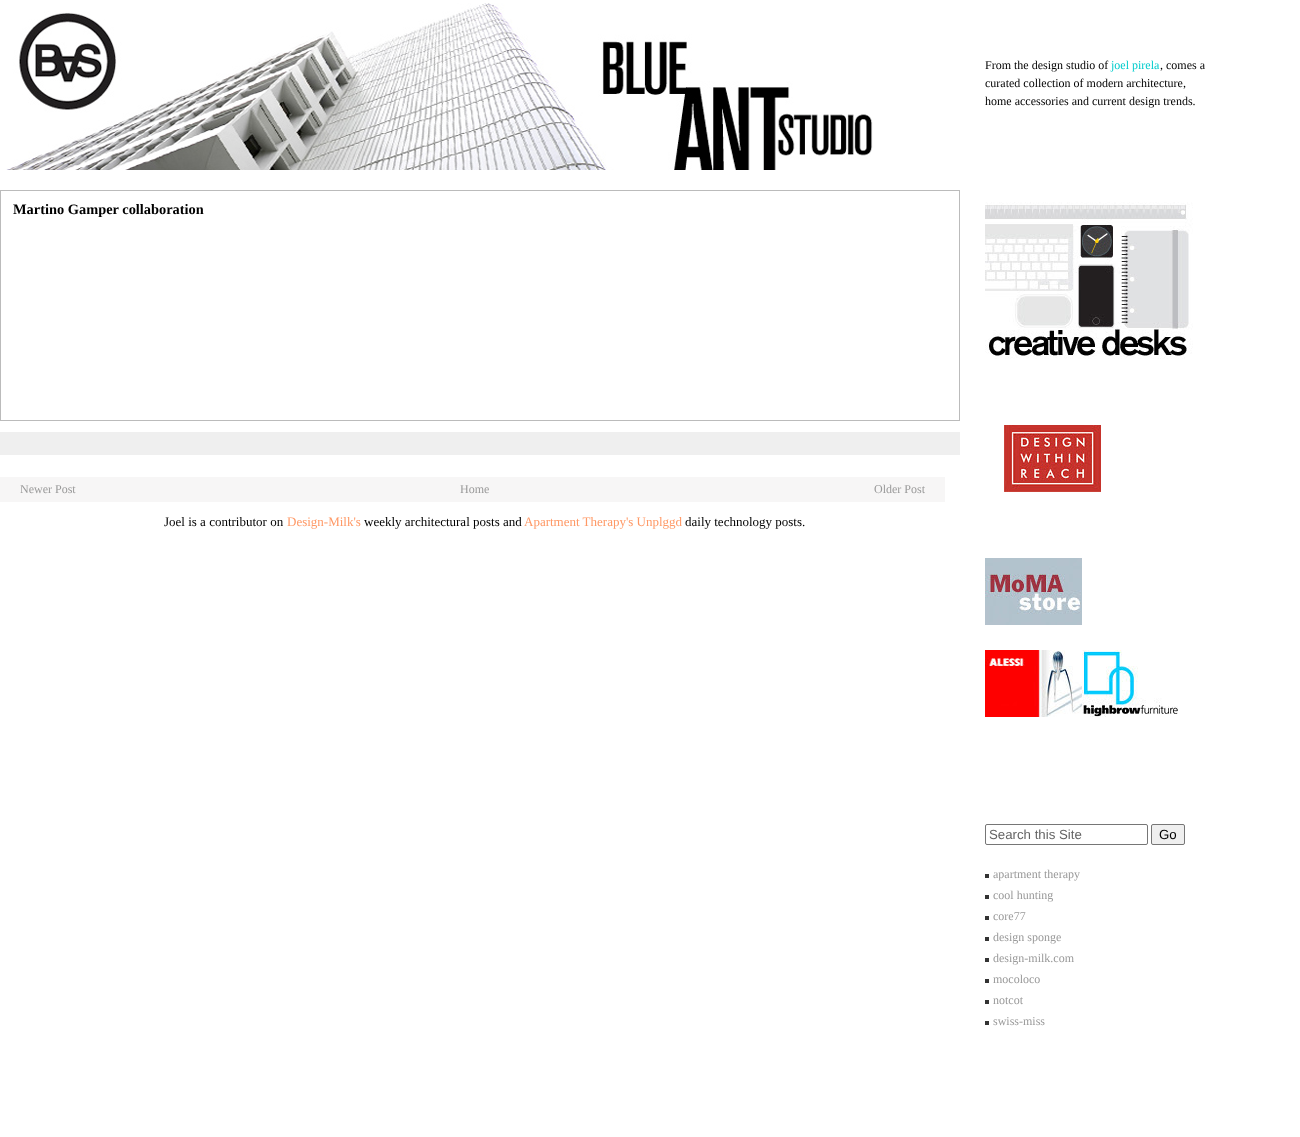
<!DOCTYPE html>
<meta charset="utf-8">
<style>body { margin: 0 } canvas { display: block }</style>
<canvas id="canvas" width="1300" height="1137"></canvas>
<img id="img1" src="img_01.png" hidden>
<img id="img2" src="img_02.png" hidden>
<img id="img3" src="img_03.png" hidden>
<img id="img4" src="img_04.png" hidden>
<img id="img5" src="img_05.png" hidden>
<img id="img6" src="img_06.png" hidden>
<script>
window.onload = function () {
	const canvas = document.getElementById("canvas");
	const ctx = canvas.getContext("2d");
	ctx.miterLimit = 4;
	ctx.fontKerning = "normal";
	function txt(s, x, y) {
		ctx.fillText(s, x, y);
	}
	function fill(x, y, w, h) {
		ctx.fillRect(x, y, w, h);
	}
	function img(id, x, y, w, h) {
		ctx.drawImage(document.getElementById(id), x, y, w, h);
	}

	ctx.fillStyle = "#FFFFFF";
	fill(0, 0, 1300, 1137);
	img("img1", 6, 3, 867, 167);
	ctx.strokeStyle = "#BBBBBB";
	ctx.strokeRect(0.5, 190.5, 959, 230);
	ctx.fillStyle = "#EFEFEF";
	fill(0, 432, 960, 23);
	ctx.fillStyle = "#F7F6F6";
	fill(0, 477, 945, 25);
	img("img2", 985, 202, 208, 157);
	img("img3", 1004, 425, 97, 67);
	img("img4", 985, 558, 97, 67);
	img("img5", 985, 650, 97, 67);
	img("img6", 1082, 650, 96, 67);
	ctx.beginPath();
	ctx.roundRect(985.5, 824.5, 162, 20, 1.5);
	ctx.strokeStyle = "#767676";
	ctx.stroke();
	ctx.fillStyle = "#EFEFEF";
	ctx.beginPath();
	ctx.roundRect(1151.5, 824.5, 33, 20, 1.5);
	ctx.fill();
	ctx.stroke();
	ctx.fillStyle = "#333333";
	fill(985, 874, 4, 4);
	fill(985, 895, 4, 4);
	fill(985, 916, 4, 4);
	fill(985, 937, 4, 4);
	fill(985, 958, 4, 4);
	fill(985, 979, 4, 4);
	fill(985, 1000, 4, 4);
	fill(985, 1021, 4, 4);
	ctx.font = "bold 14.4px Liberation Serif";
	ctx.fillStyle = "#000000";
	txt("Martino Gamper collaboration", 13, 214);
	ctx.font = "12px Liberation Serif";
	ctx.fillStyle = "#999999";
	txt("Newer Post", 20, 493);
	txt("Home", 460, 493);
	txt("Older Post", 874, 493);
	ctx.font = "13px Liberation Serif";
	ctx.fillStyle = "#000000";
	txt("Joel is a contributor on", 164, 526);
	ctx.fillStyle = "#FF9966";
	txt("Design-Milk's", 287, 526);
	ctx.fillStyle = "#000000";
	txt("weekly architectural posts and", 364, 526);
	ctx.fillStyle = "#FF9966";
	txt("Apartment Therapy's Unplggd", 524, 526);
	ctx.fillStyle = "#000000";
	txt("daily technology posts.", 685, 526);
	ctx.font = "12px Liberation Serif";
	txt("From the design studio of", 985, 69);
	ctx.fillStyle = "#00CCCC";
	txt("joel pirela", 1111, 69);
	ctx.fillStyle = "#000000";
	txt(", comes a", 1160, 69);
	txt("curated collection of modern architecture,", 985, 87);
	txt("home accessories and current design trends.", 985, 105);
	ctx.font = "13.25px Liberation Sans";
	ctx.fillStyle = "#636363";
	txt("Search this Site", 989, 839);
	ctx.fillStyle = "#000000";
	txt("Go", 1159, 839);
	ctx.font = "12px Liberation Serif";
	ctx.fillStyle = "#999999";
	txt("apartment therapy", 993, 878);
	txt("cool hunting", 993, 899);
	txt("core77", 993, 920);
	txt("design sponge", 993, 941);
	txt("design-milk.com", 993, 962);
	txt("mocoloco", 993, 983);
	txt("notcot", 993, 1004);
	txt("swiss-miss", 993, 1025);
};
</script>
